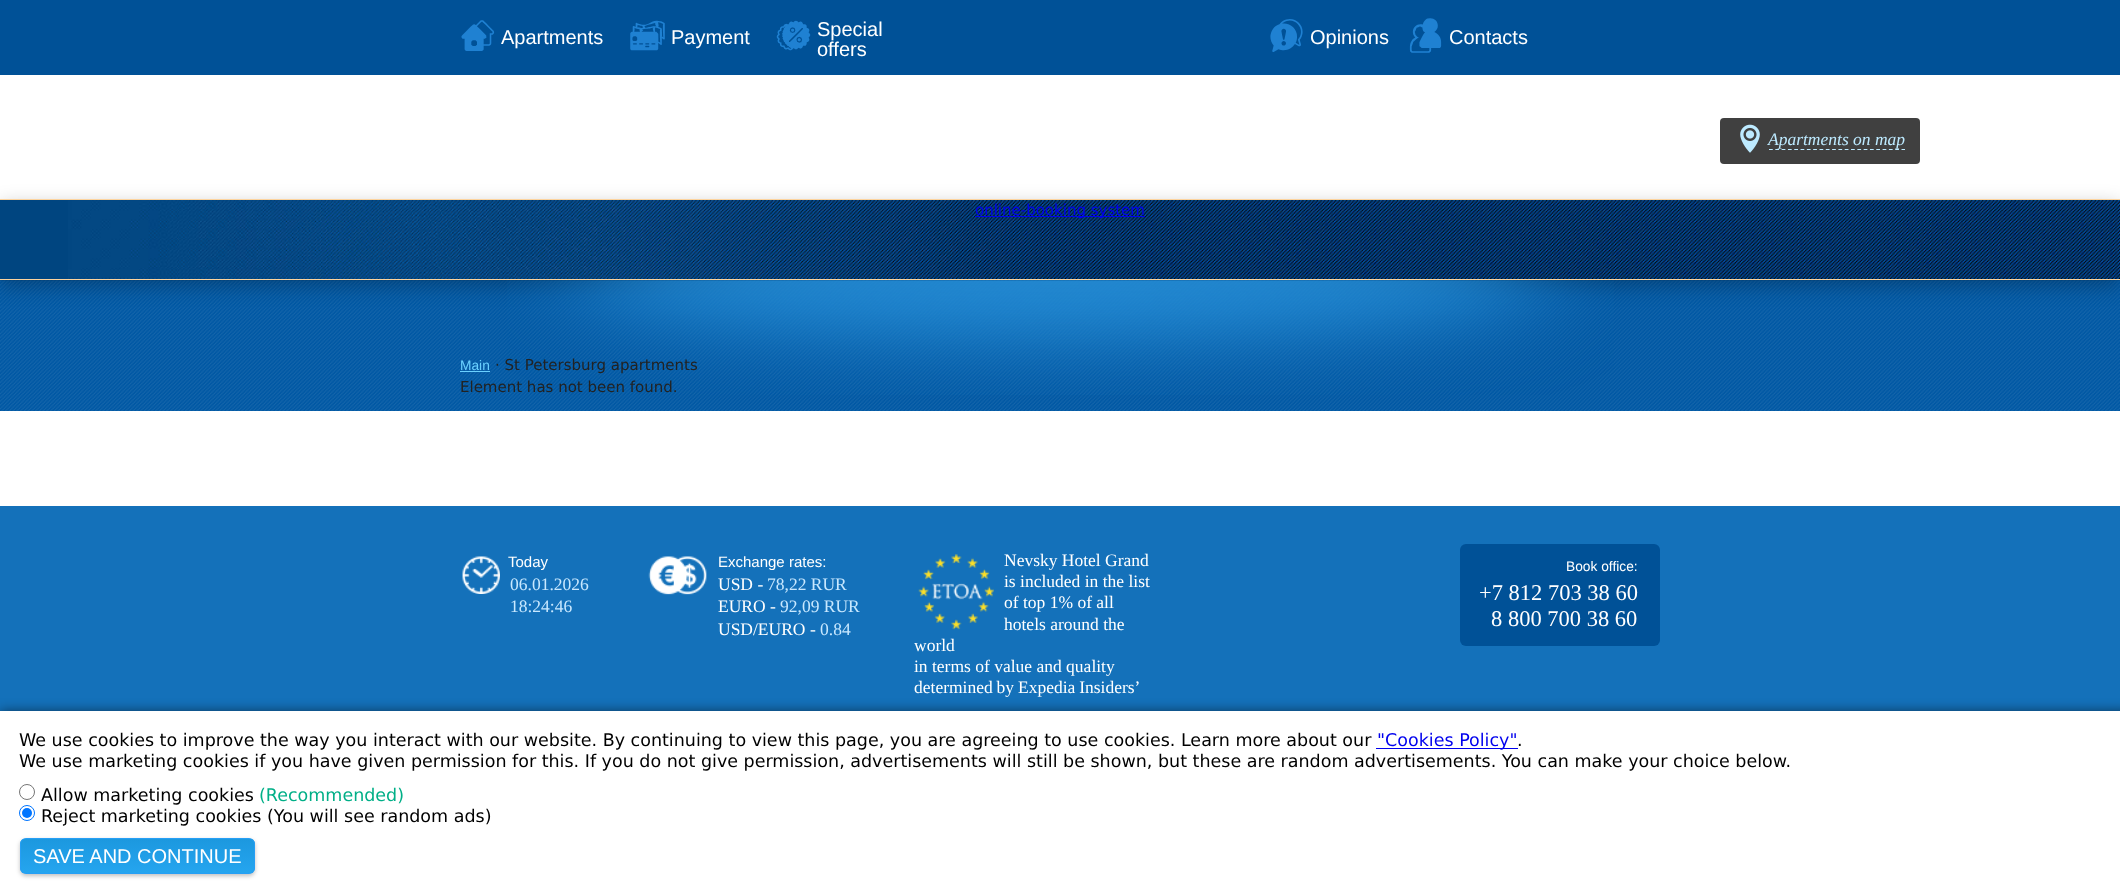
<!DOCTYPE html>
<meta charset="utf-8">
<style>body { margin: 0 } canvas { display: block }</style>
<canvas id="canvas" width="2120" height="892"></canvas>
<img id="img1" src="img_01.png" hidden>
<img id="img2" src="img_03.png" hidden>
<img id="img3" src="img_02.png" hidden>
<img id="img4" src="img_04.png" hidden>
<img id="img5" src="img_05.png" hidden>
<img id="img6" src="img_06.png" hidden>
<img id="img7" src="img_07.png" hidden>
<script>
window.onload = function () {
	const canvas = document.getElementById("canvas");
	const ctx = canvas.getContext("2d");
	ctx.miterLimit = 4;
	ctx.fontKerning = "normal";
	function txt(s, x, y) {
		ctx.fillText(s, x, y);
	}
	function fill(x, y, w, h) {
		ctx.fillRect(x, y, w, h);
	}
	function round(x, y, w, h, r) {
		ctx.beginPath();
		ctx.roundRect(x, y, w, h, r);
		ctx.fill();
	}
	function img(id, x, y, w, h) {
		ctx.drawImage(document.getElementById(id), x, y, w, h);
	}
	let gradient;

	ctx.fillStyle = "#004580";
	fill(0, 0, 2120, 892);
	ctx.fillStyle = "#005197";
	fill(0, 0, 2120, 75);
	ctx.fillStyle = "#FFFFFF";
	fill(0, 75, 2120, 124);
	ctx.fillStyle = "#404040";
	round(1720, 118, 200, 46, 4);
	img("img1", 1740, 124, 20, 29);
	ctx.beginPath();
	ctx.moveTo(1769, 149.5);
	ctx.lineTo(1905, 149.5);
	ctx.strokeStyle = "#BDEAFF";
	ctx.lineWidth = 1.2;
	ctx.setLineDash([3.75, 2.56]);
	ctx.stroke();
	img("img2", 0, 280, 2120, 131);
	ctx.save();
	ctx.beginPath();
	ctx.moveTo(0, 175);
	ctx.lineTo(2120, 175);
	ctx.lineTo(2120, 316);
	ctx.lineTo(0, 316);
	ctx.closePath();
	ctx.moveTo(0, 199);
	ctx.lineTo(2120, 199);
	ctx.lineTo(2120, 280);
	ctx.lineTo(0, 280);
	ctx.closePath();
	ctx.clip("evenodd");
	ctx.fillStyle = "rgba(0, 0, 0, 0.25)";
	ctx.filter = "blur(9.5px)";
	ctx.beginPath();
	ctx.rect(0, 205, 2120, 81);
	ctx.fill();
	ctx.filter = "none";
	ctx.restore();
	img("img3", 68, 200, 2052, 79);
	ctx.fillStyle = "#FCD39E";
	fill(0, 199, 2120, 1);
	fill(0, 279, 2120, 1);
	ctx.fillStyle = "#0000EE";
	fill(975, 216, 170, 1);
	img("img4", 507, 280, 1107, 115);
	ctx.fillStyle = "#6AD0FF";
	fill(460, 371, 30, 1);
	ctx.fillStyle = "#FFFFFF";
	fill(0, 411, 2120, 95);
	ctx.fillStyle = "#1471BA";
	fill(0, 506, 2120, 205);
	img("img5", 462, 556, 38, 38);
	img("img6", 648, 556, 59, 39);
	img("img7", 918, 554, 76, 76);
	ctx.fillStyle = "#005197";
	round(1460, 544, 200, 102, 6);
	ctx.fillStyle = "rgba(0, 0, 0, 0.5)";
	ctx.filter = "blur(6px)";
	ctx.beginPath();
	ctx.rect(0, 711, 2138, 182);
	ctx.fill();
	ctx.filter = "none";
	ctx.fillStyle = "#FFFFFF";
	fill(0, 711, 2120, 181);
	ctx.fillStyle = "#0000EE";
	fill(1376, 748, 142, 1);
	ctx.beginPath();
	ctx.arc(27, 792, 7.5, 0, Math.PI * 2);
	ctx.strokeStyle = "#767676";
	ctx.lineWidth = 1;
	ctx.setLineDash([]);
	ctx.stroke();
	ctx.beginPath();
	ctx.arc(27, 813, 7.5, 0, Math.PI * 2);
	ctx.strokeStyle = "#0075FF";
	ctx.stroke();
	ctx.fillStyle = "#0075FF";
	ctx.beginPath();
	ctx.arc(27, 813, 5, 0, Math.PI * 2);
	ctx.fill();
	ctx.fillStyle = "rgba(0, 0, 0, 0.25)";
	ctx.filter = "blur(2px)";
	ctx.beginPath();
	ctx.roundRect(20, 840, 235, 36, 6);
	ctx.fill();
	ctx.filter = "none";
	ctx.save();
	ctx.beginPath();
	ctx.roundRect(20, 838, 235, 36, 6);
	ctx.clip();
	gradient = ctx.createLinearGradient(138, 873, 138, 839);
	gradient.addColorStop(0, "#25A5EF");
	gradient.addColorStop(1, "#1C98DF");
	ctx.fillStyle = gradient;
	fill(20, 839, 235, 34);
	ctx.restore();
	ctx.beginPath();
	ctx.roundRect(20.5, 838.5, 234, 35, 5.5);
	ctx.strokeStyle = "#269FF5";
	ctx.stroke();
	ctx.font = "35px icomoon";
	ctx.fillStyle = "#1F81D2";
	txt("1", 460, 53);
	ctx.font = "20px Liberation Sans";
	ctx.fillStyle = "#FFFFFF";
	txt("Apartments", 501, 44);
	ctx.font = "35px icomoon";
	ctx.fillStyle = "#1F81D2";
	txt("5", 630, 53);
	ctx.font = "20px Liberation Sans";
	ctx.fillStyle = "#FFFFFF";
	txt("Payment", 671, 44);
	ctx.font = "35px icomoon";
	ctx.fillStyle = "#1F81D2";
	txt("3", 776, 53);
	ctx.font = "20px Liberation Sans";
	ctx.fillStyle = "#FFFFFF";
	txt("Special", 817, 36);
	txt("offers", 817, 56);
	ctx.font = "35px icomoon";
	ctx.fillStyle = "#1F81D2";
	txt("4", 1269, 53);
	ctx.font = "20px Liberation Sans";
	ctx.fillStyle = "#FFFFFF";
	txt("Opinions", 1310, 44);
	ctx.font = "35px icomoon";
	ctx.fillStyle = "#1F81D2";
	txt("6", 1408, 53);
	ctx.font = "20px Liberation Sans";
	ctx.fillStyle = "#FFFFFF";
	txt("Contacts", 1449, 44);
	ctx.font = "italic 17.5px Liberation Serif";
	ctx.fillStyle = "#BDEAFF";
	txt("Apartments on map", 1768, 145);
	ctx.font = "15px DejaVu Sans";
	ctx.fillStyle = "#0000EE";
	txt("online-booking system", 975, 215);
	ctx.font = "13.75px Liberation Sans";
	ctx.fillStyle = "#6AD0FF";
	txt("Main", 460, 370);
	ctx.font = "15px DejaVu Sans";
	ctx.fillStyle = "#222222";
	txt("· St Petersburg apartments", 495, 370);
	txt("Element has not been found.", 460, 392);
	ctx.font = "15px Liberation Sans";
	ctx.fillStyle = "#FFFFFF";
	txt("Today", 508, 567);
	ctx.font = "17.5px Liberation Serif";
	ctx.fillStyle = "#C8E8FF";
	txt("06.01.2026", 510, 590);
	txt("18:24:46", 510, 612);
	ctx.font = "15px Liberation Sans";
	ctx.fillStyle = "#FFFFFF";
	txt("Exchange rates:", 718, 567);
	ctx.font = "17.5px Liberation Serif";
	txt("USD -", 718, 590);
	ctx.fillStyle = "#C8E8FF";
	txt("78,22 RUR", 767, 590);
	ctx.fillStyle = "#FFFFFF";
	txt("EURO -", 718, 612);
	ctx.fillStyle = "#C8E8FF";
	txt("92,09 RUR", 780, 612);
	ctx.fillStyle = "#FFFFFF";
	txt("USD/EURO -", 718, 635);
	ctx.fillStyle = "#C8E8FF";
	txt("0.84", 820, 635);
	ctx.fillStyle = "#FFFFFF";
	txt("Nevsky Hotel Grand", 1004, 566);
	txt("is included in the list", 1004, 587);
	txt("of top 1% of all", 1004, 608);
	txt("hotels around the", 1004, 630);
	txt("world", 914, 651);
	txt("in terms of value and quality", 914, 672);
	ctx.wordSpacing = "-0.5px";
	txt("determined by Expedia Insiders’", 914, 693);
	ctx.wordSpacing = "0px";
	ctx.font = "13.75px Liberation Sans";
	txt("Book office:", 1566, 571);
	ctx.font = "22.5px Liberation Serif";
	txt("+7 812 703 38 60", 1479, 600);
	txt("8 800 700 38 60", 1491, 626);
	ctx.font = "17.5px DejaVu Sans";
	ctx.fillStyle = "#000000";
	txt("We use cookies to improve the way you interact with our website. By continuing to view this page, you are agreeing to use cookies. Learn more about our", 19, 746);
	ctx.fillStyle = "#0000EE";
	txt("\"Cookies Policy\"", 1377, 746);
	ctx.fillStyle = "#000000";
	txt(".", 1517, 746);
	txt("We use marketing cookies if you have given permission for this. If you do not give permission, advertisements will still be shown, but these are random advertisements. You can make your choice below.", 19, 767);
	txt("Allow marketing cookies", 41, 801);
	ctx.fillStyle = "#00AF87";
	txt("(Recommended)", 259, 801);
	ctx.fillStyle = "#000000";
	txt("Reject marketing cookies (You will see random ads)", 41, 822);
	ctx.font = "20px Liberation Sans";
	ctx.fillStyle = "#FFFFFF";
	txt("SAVE AND CONTINUE", 33, 863);
};
</script>
